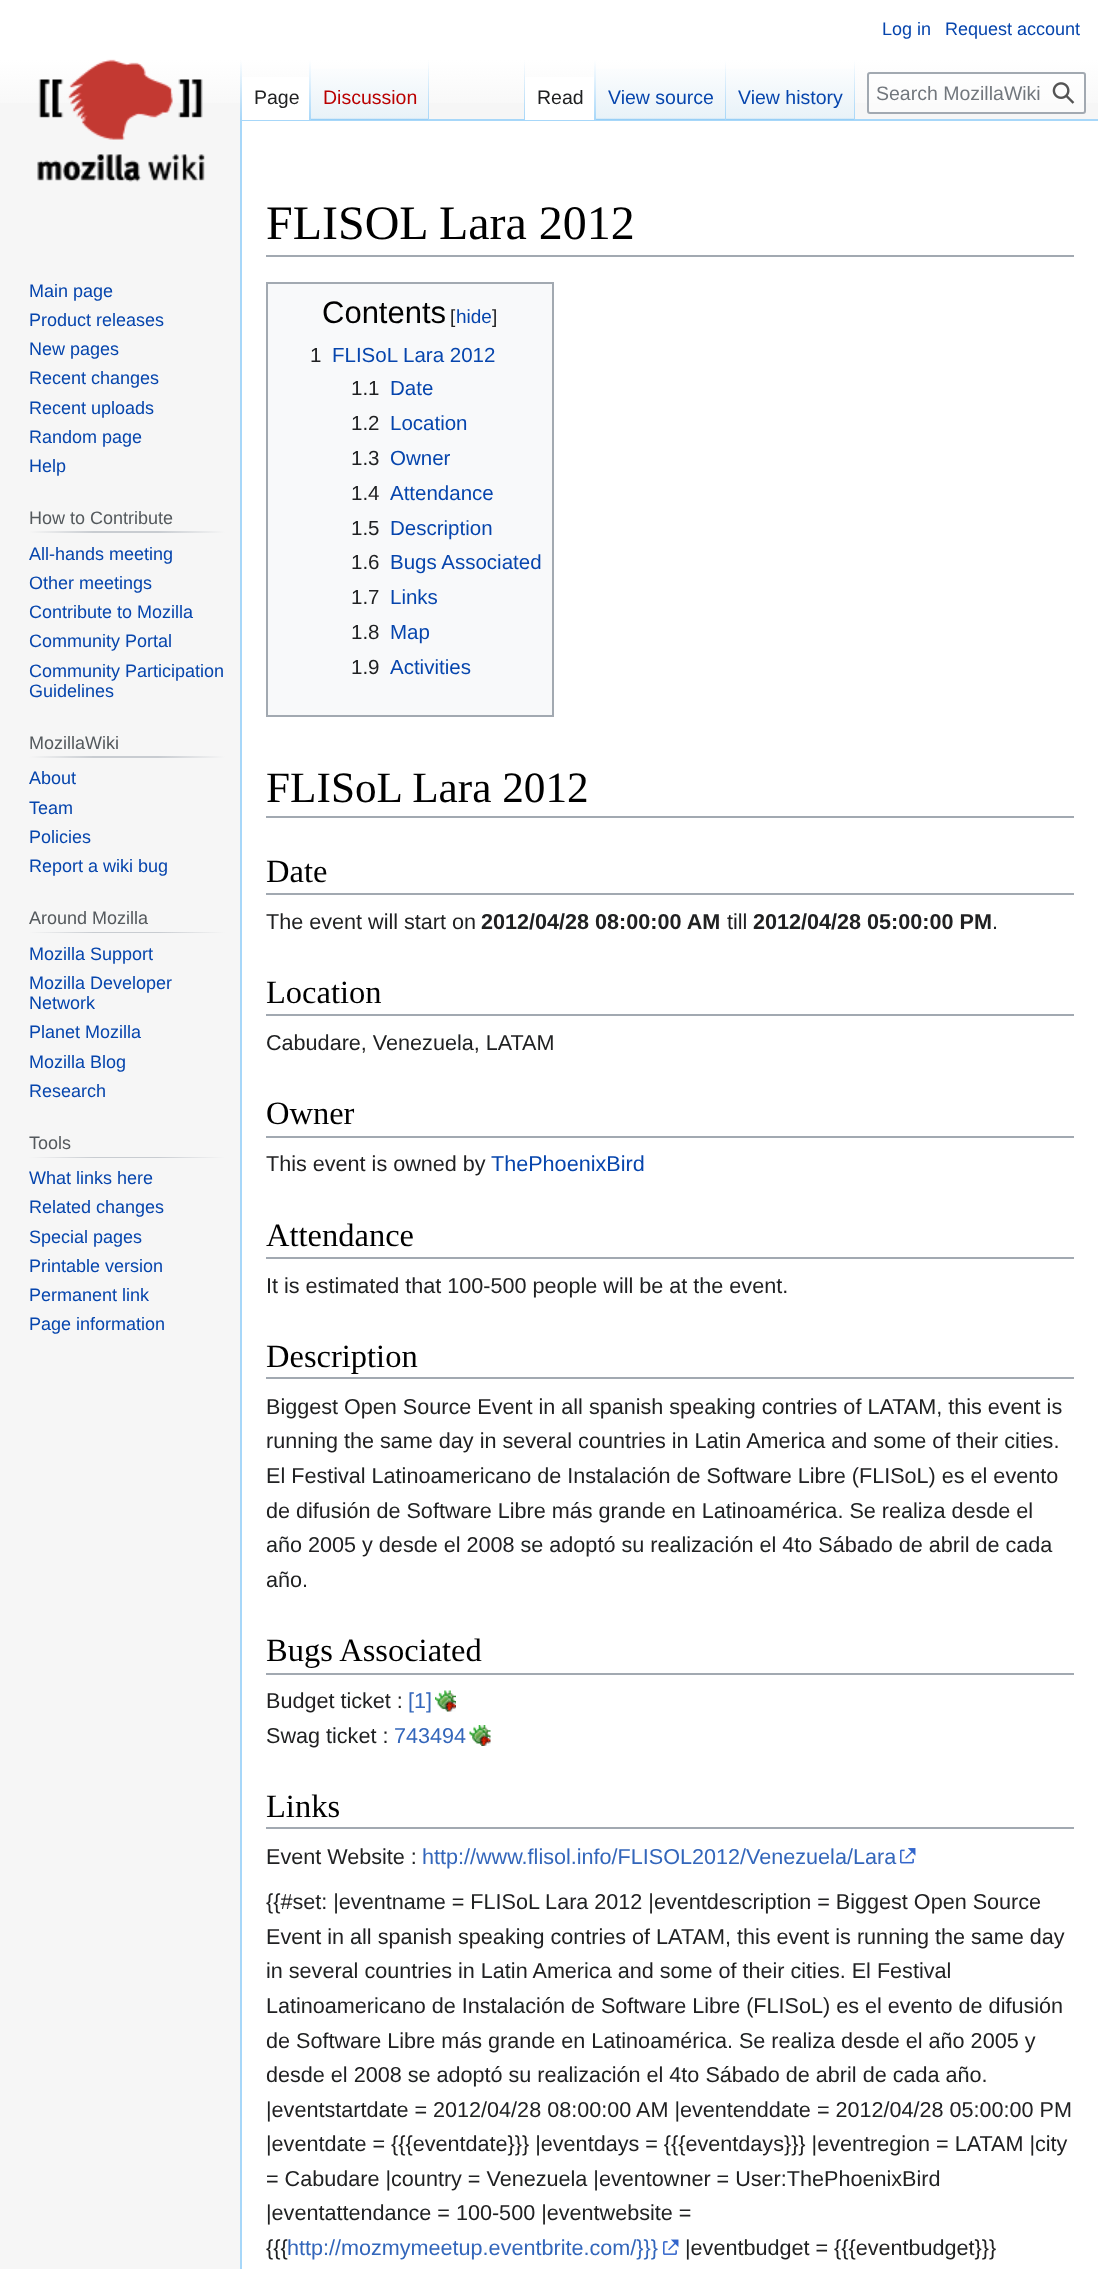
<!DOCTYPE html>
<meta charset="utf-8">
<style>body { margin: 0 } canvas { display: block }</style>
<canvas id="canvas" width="1098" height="2269"></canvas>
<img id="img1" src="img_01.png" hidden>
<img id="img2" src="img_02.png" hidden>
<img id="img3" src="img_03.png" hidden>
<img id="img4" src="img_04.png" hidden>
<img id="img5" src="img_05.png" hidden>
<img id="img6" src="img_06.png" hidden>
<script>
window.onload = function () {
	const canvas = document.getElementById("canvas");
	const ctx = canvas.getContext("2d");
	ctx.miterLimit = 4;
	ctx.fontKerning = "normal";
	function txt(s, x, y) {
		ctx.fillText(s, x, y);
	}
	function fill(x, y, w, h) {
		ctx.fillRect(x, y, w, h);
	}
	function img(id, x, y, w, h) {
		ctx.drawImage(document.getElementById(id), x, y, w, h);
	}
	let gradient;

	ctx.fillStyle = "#F6F6F6";
	fill(0, 0, 1098, 2269);
	gradient = ctx.createLinearGradient(549, 0, 549, 120);
	gradient.addColorStop(0.5, "#FFFFFF");
	gradient.addColorStop(1, "#F6F6F6");
	ctx.fillStyle = gradient;
	fill(0, 0, 1098, 103);
	ctx.fillStyle = "#A7D7F9";
	fill(240, 119, 858, 2);
	fill(240, 119, 2, 2150);
	gradient = ctx.createLinearGradient(241, 60, 241, 120);
	gradient.addColorStop(0, "rgba(167, 215, 249, 0)");
	gradient.addColorStop(1, "#A7D7F9");
	ctx.fillStyle = gradient;
	fill(240, 60, 2, 60);
	ctx.fillStyle = "#FFFFFF";
	fill(242, 77, 67, 43);
	gradient = ctx.createLinearGradient(310, 60, 310, 120);
	gradient.addColorStop(0, "#FFFFFF");
	gradient.addColorStop(1, "#A7D7F9");
	ctx.fillStyle = gradient;
	fill(309, 60, 2, 60);
	gradient = ctx.createLinearGradient(370, 120, 370, 60);
	gradient.addColorStop(0, "#77C1F6");
	gradient.addColorStop(0.03, "#E8F2F8");
	gradient.addColorStop(1, "#FFFFFF");
	ctx.fillStyle = gradient;
	fill(311, 69, 118, 51);
	gradient = ctx.createLinearGradient(428, 60, 428, 120);
	gradient.addColorStop(0, "rgba(167, 215, 249, 0)");
	gradient.addColorStop(1, "#A7D7F9");
	ctx.fillStyle = gradient;
	fill(428, 60, 1, 60);
	gradient = ctx.createLinearGradient(524, 60, 524, 120);
	gradient.addColorStop(0, "rgba(167, 215, 249, 0)");
	gradient.addColorStop(1, "#A7D7F9");
	ctx.fillStyle = gradient;
	fill(524, 60, 1, 60);
	ctx.fillStyle = "#FFFFFF";
	fill(525, 77, 69, 43);
	gradient = ctx.createLinearGradient(595, 60, 595, 120);
	gradient.addColorStop(0, "#FFFFFF");
	gradient.addColorStop(1, "#A7D7F9");
	ctx.fillStyle = gradient;
	fill(594, 60, 2, 60);
	gradient = ctx.createLinearGradient(661, 120, 661, 60);
	gradient.addColorStop(0, "#77C1F6");
	gradient.addColorStop(0.03, "#E8F2F8");
	gradient.addColorStop(1, "#FFFFFF");
	ctx.fillStyle = gradient;
	fill(596, 69, 130, 51);
	gradient = ctx.createLinearGradient(725, 60, 725, 120);
	gradient.addColorStop(0, "rgba(167, 215, 249, 0)");
	gradient.addColorStop(1, "#A7D7F9");
	ctx.fillStyle = gradient;
	fill(725, 60, 1, 60);
	gradient = ctx.createLinearGradient(791, 120, 791, 60);
	gradient.addColorStop(0, "#77C1F6");
	gradient.addColorStop(0.03, "#E8F2F8");
	gradient.addColorStop(1, "#FFFFFF");
	ctx.fillStyle = gradient;
	fill(726, 69, 129, 51);
	gradient = ctx.createLinearGradient(854, 60, 854, 120);
	gradient.addColorStop(0, "rgba(167, 215, 249, 0)");
	gradient.addColorStop(1, "#A7D7F9");
	ctx.fillStyle = gradient;
	fill(854, 60, 1, 60);
	ctx.fillStyle = "rgba(255, 255, 255, 0.5)";
	ctx.beginPath();
	ctx.roundRect(868, 73, 217, 40, 2);
	ctx.fill();
	ctx.strokeStyle = "#A2A9B1";
	ctx.lineWidth = 2;
	ctx.stroke();
	img("img1", 1052, 82, 23, 22);
	img("img2", 37, 59, 168, 123);
	gradient = ctx.createLinearGradient(29, 532, 225, 532);
	gradient.addColorStop(0, "#F6F6F6");
	gradient.addColorStop(0.33, "#C8CCD1");
	gradient.addColorStop(0.66, "#C8CCD1");
	gradient.addColorStop(1, "#F6F6F6");
	ctx.fillStyle = gradient;
	fill(29, 531, 196, 2);
	gradient = ctx.createLinearGradient(29, 757, 225, 757);
	gradient.addColorStop(0, "#F6F6F6");
	gradient.addColorStop(0.33, "#C8CCD1");
	gradient.addColorStop(0.66, "#C8CCD1");
	gradient.addColorStop(1, "#F6F6F6");
	ctx.fillStyle = gradient;
	fill(29, 756, 196, 2);
	gradient = ctx.createLinearGradient(29, 932, 225, 932);
	gradient.addColorStop(0, "#F6F6F6");
	gradient.addColorStop(0.33, "#C8CCD1");
	gradient.addColorStop(0.66, "#C8CCD1");
	gradient.addColorStop(1, "#F6F6F6");
	ctx.fillStyle = gradient;
	fill(29, 932, 196, 1);
	gradient = ctx.createLinearGradient(29, 1157, 225, 1157);
	gradient.addColorStop(0, "#F6F6F6");
	gradient.addColorStop(0.33, "#C8CCD1");
	gradient.addColorStop(0.66, "#C8CCD1");
	gradient.addColorStop(1, "#F6F6F6");
	ctx.fillStyle = gradient;
	fill(29, 1157, 196, 1);
	ctx.fillStyle = "#FFFFFF";
	fill(242, 121, 856, 2148);
	ctx.fillStyle = "#A2A9B1";
	fill(266, 255, 808, 2);
	ctx.fillStyle = "#F8F9FA";
	ctx.beginPath();
	ctx.rect(267, 283, 286, 433);
	ctx.fill();
	ctx.stroke();
	ctx.fillStyle = "#A2A9B1";
	fill(266, 816, 808, 2);
	fill(266, 893, 808, 2);
	fill(266, 1014, 808, 2);
	fill(266, 1136, 808, 2);
	fill(266, 1257, 808, 2);
	fill(266, 1377, 808, 2);
	fill(266, 1673, 808, 2);
	img("img3", 435, 1690, 21, 22);
	img("img4", 469, 1725, 22, 21);
	fill(266, 1827, 808, 2);
	img("img5", 900, 1848, 16, 16);
	img("img6", 663, 2239, 16, 16);
	ctx.font = "18px Liberation Sans";
	ctx.fillStyle = "#0645AD";
	txt("Log in", 882, 35);
	txt("Request account", 945, 35);
	ctx.font = "19.5px Liberation Sans";
	ctx.fillStyle = "#202122";
	txt("Page", 254, 104);
	ctx.fillStyle = "#BA0000";
	txt("Discussion", 323, 104);
	ctx.fillStyle = "#202122";
	txt("Read", 537, 104);
	ctx.fillStyle = "#0645AD";
	txt("View source", 608, 104);
	txt("View history", 738, 104);
	ctx.fillStyle = "#72777D";
	txt("Search MozillaWiki", 876, 100);
	ctx.font = "18px Liberation Sans";
	ctx.fillStyle = "#0645AD";
	txt("Main page", 29, 297);
	txt("Product releases", 29, 326);
	txt("New pages", 29, 355);
	txt("Recent changes", 29, 384);
	txt("Recent uploads", 29, 414);
	txt("Random page", 29, 443);
	txt("Help", 29, 472);
	ctx.fillStyle = "#54595D";
	txt("How to Contribute", 29, 524);
	ctx.fillStyle = "#0645AD";
	txt("All-hands meeting", 29, 560);
	txt("Other meetings", 29, 589);
	txt("Contribute to Mozilla", 29, 618);
	txt("Community Portal", 29, 647);
	txt("Community Participation", 29, 677);
	txt("Guidelines", 29, 697);
	ctx.fillStyle = "#54595D";
	txt("MozillaWiki", 29, 749);
	ctx.fillStyle = "#0645AD";
	txt("About", 29, 784);
	txt("Team", 29, 814);
	txt("Policies", 29, 843);
	txt("Report a wiki bug", 29, 872);
	ctx.fillStyle = "#54595D";
	txt("Around Mozilla", 29, 924);
	ctx.fillStyle = "#0645AD";
	txt("Mozilla Support", 29, 960);
	txt("Mozilla Developer", 29, 989);
	txt("Network", 29, 1009);
	txt("Planet Mozilla", 29, 1038);
	txt("Mozilla Blog", 29, 1068);
	txt("Research", 29, 1097);
	ctx.fillStyle = "#54595D";
	txt("Tools", 29, 1149);
	ctx.fillStyle = "#0645AD";
	txt("What links here", 29, 1184);
	txt("Related changes", 29, 1213);
	txt("Special pages", 29, 1243);
	txt("Printable version", 29, 1272);
	txt("Permanent link", 29, 1301);
	txt("Page information", 29, 1330);
	ctx.font = "48px Liberation Serif";
	ctx.fillStyle = "#000000";
	txt("FLISOL Lara 2012", 266, 239);
	ctx.font = "31px Liberation Sans";
	txt("Contents", 322, 323);
	ctx.font = "19px Liberation Sans";
	ctx.fillStyle = "#202122";
	txt("[", 450, 323);
	ctx.fillStyle = "#0645AD";
	txt("hide", 456, 323);
	ctx.fillStyle = "#202122";
	txt("]", 492, 323);
	ctx.font = "20.5px Liberation Sans";
	txt("1", 310, 362);
	ctx.fillStyle = "#0645AD";
	txt("FLISoL Lara 2012", 332, 362);
	ctx.fillStyle = "#202122";
	txt("1.1", 351, 395);
	ctx.fillStyle = "#0645AD";
	txt("Date", 390, 395);
	ctx.fillStyle = "#202122";
	txt("1.2", 351, 430);
	ctx.fillStyle = "#0645AD";
	txt("Location", 390, 430);
	ctx.fillStyle = "#202122";
	txt("1.3", 351, 465);
	ctx.fillStyle = "#0645AD";
	txt("Owner", 390, 465);
	ctx.fillStyle = "#202122";
	txt("1.4", 351, 500);
	ctx.fillStyle = "#0645AD";
	txt("Attendance", 390, 500);
	ctx.fillStyle = "#202122";
	txt("1.5", 351, 535);
	ctx.fillStyle = "#0645AD";
	txt("Description", 390, 535);
	ctx.fillStyle = "#202122";
	txt("1.6", 351, 569);
	ctx.fillStyle = "#0645AD";
	txt("Bugs Associated", 390, 569);
	ctx.fillStyle = "#202122";
	txt("1.7", 351, 604);
	ctx.fillStyle = "#0645AD";
	txt("Links", 390, 604);
	ctx.fillStyle = "#202122";
	txt("1.8", 351, 639);
	ctx.fillStyle = "#0645AD";
	txt("Map", 390, 639);
	ctx.fillStyle = "#202122";
	txt("1.9", 351, 674);
	ctx.fillStyle = "#0645AD";
	txt("Activities", 390, 674);
	ctx.font = "43.25px Liberation Serif";
	ctx.fillStyle = "#000000";
	txt("FLISoL Lara 2012", 266, 802);
	ctx.font = "32.5px Liberation Serif";
	txt("Date", 266, 882);
	ctx.font = "21.6px Liberation Sans";
	ctx.fillStyle = "#202122";
	txt("The event will start on", 266, 929);
	ctx.font = "bold 21.6px Liberation Sans";
	txt("2012/04/28 08:00:00 AM", 481, 929);
	ctx.font = "21.6px Liberation Sans";
	txt("till", 727, 929);
	ctx.font = "bold 21.6px Liberation Sans";
	txt("2012/04/28 05:00:00 PM", 753, 929);
	ctx.font = "21.6px Liberation Sans";
	txt(".", 992, 929);
	ctx.font = "32.5px Liberation Serif";
	ctx.fillStyle = "#000000";
	txt("Location", 266, 1003);
	ctx.font = "21.6px Liberation Sans";
	ctx.fillStyle = "#202122";
	txt("Cabudare, Venezuela, LATAM", 266, 1050);
	ctx.font = "32.5px Liberation Serif";
	ctx.fillStyle = "#000000";
	txt("Owner", 266, 1124);
	ctx.font = "21.6px Liberation Sans";
	ctx.fillStyle = "#202122";
	txt("This event is owned by", 266, 1171);
	ctx.fillStyle = "#0645AD";
	txt("ThePhoenixBird", 491, 1171);
	ctx.font = "32.5px Liberation Serif";
	ctx.fillStyle = "#000000";
	txt("Attendance", 266, 1246);
	ctx.font = "21.6px Liberation Sans";
	ctx.fillStyle = "#202122";
	txt("It is estimated that 100-500 people will be at the event.", 266, 1293);
	ctx.font = "32.5px Liberation Serif";
	ctx.fillStyle = "#000000";
	txt("Description", 266, 1367);
	ctx.font = "21.6px Liberation Sans";
	ctx.fillStyle = "#202122";
	txt("Biggest Open Source Event in all spanish speaking contries of LATAM, this event is", 266, 1414);
	txt("running the same day in several countries in Latin America and some of their cities.", 266, 1448);
	txt("El Festival Latinoamericano de Instalación de Software Libre (FLISoL) es el evento", 266, 1483);
	txt("de difusión de Software Libre más grande en Latinoamérica. Se realiza desde el", 266, 1518);
	txt("año 2005 y desde el 2008 se adoptó su realización el 4to Sábado de abril de cada", 266, 1552);
	txt("año.", 266, 1587);
	ctx.font = "32.5px Liberation Serif";
	ctx.fillStyle = "#000000";
	txt("Bugs Associated", 266, 1661);
	ctx.font = "21.6px Liberation Sans";
	ctx.fillStyle = "#202122";
	txt("Budget ticket :", 266, 1708);
	ctx.fillStyle = "#3366BB";
	txt("[1]", 408, 1708);
	ctx.fillStyle = "#202122";
	txt("Swag ticket :", 266, 1743);
	ctx.fillStyle = "#3366BB";
	txt("743494", 394, 1743);
	ctx.font = "32.5px Liberation Serif";
	ctx.fillStyle = "#000000";
	txt("Links", 266, 1817);
	ctx.font = "21.6px Liberation Sans";
	ctx.fillStyle = "#202122";
	txt("Event Website :", 266, 1864);
	ctx.fillStyle = "#3366BB";
	txt("http://www.flisol.info/FLISOL2012/Venezuela/Lara", 422, 1864);
	ctx.fillStyle = "#202122";
	txt("{{#set: |eventname = FLISoL Lara 2012 |eventdescription = Biggest Open Source", 266, 1909);
	txt("Event in all spanish speaking contries of LATAM, this event is running the same day", 266, 1944);
	txt("in several countries in Latin America and some of their cities. El Festival", 266, 1978);
	txt("Latinoamericano de Instalación de Software Libre (FLISoL) es el evento de difusión", 266, 2013);
	txt("de Software Libre más grande en Latinoamérica. Se realiza desde el año 2005 y", 266, 2048);
	txt("desde el 2008 se adoptó su realización el 4to Sábado de abril de cada año.", 266, 2082);
	txt("|eventstartdate = 2012/04/28 08:00:00 AM |eventenddate = 2012/04/28 05:00:00 PM", 266, 2117);
	txt("|eventdate = {{{eventdate}}} |eventdays = {{{eventdays}}} |eventregion = LATAM |city", 266, 2151);
	txt("= Cabudare |country = Venezuela |eventowner = User:ThePhoenixBird", 266, 2186);
	txt("|eventattendance = 100-500 |eventwebsite =", 266, 2220);
	txt("{{{", 266, 2255);
	ctx.fillStyle = "#3366BB";
	txt("http://mozmymeetup.eventbrite.com/}}}", 287, 2255);
	ctx.fillStyle = "#202122";
	txt("|eventbudget = {{{eventbudget}}}", 685, 2255);
};
</script>
